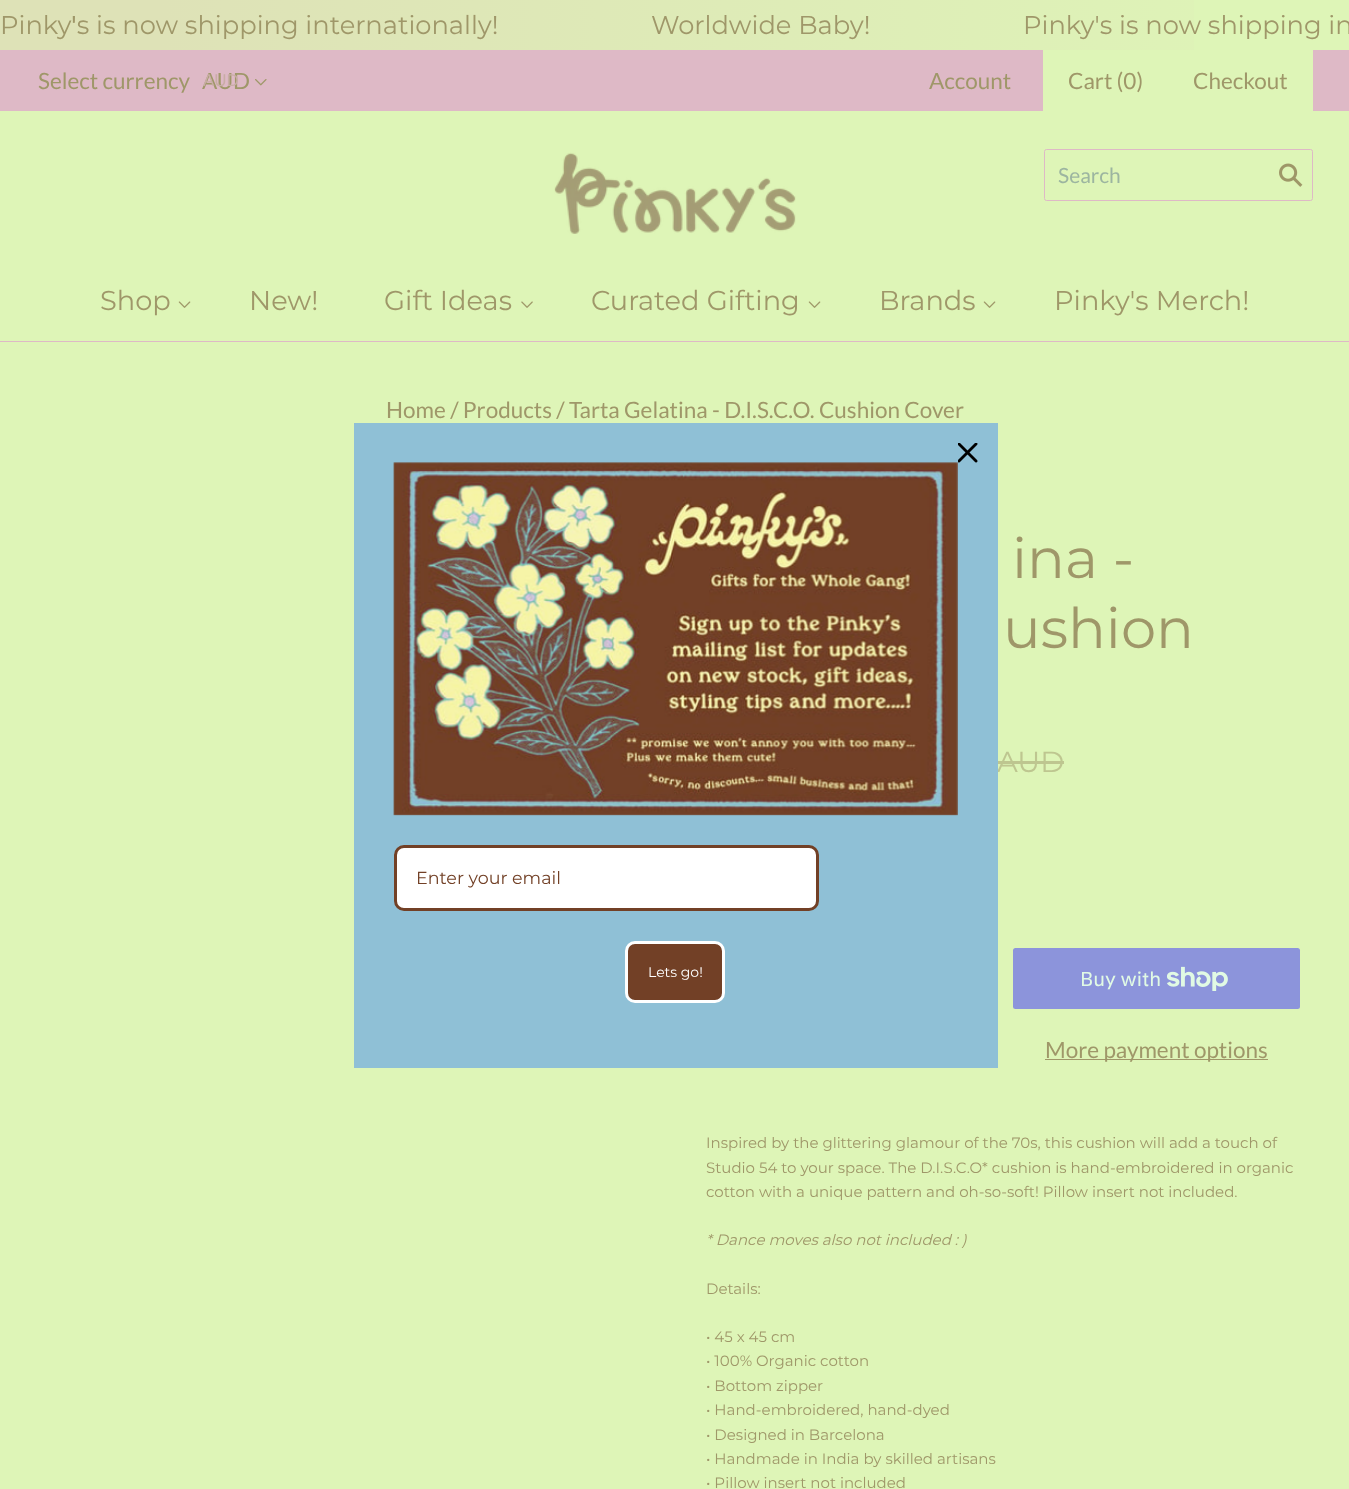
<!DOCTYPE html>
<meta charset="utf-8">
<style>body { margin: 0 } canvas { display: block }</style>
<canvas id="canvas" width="1349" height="1489"></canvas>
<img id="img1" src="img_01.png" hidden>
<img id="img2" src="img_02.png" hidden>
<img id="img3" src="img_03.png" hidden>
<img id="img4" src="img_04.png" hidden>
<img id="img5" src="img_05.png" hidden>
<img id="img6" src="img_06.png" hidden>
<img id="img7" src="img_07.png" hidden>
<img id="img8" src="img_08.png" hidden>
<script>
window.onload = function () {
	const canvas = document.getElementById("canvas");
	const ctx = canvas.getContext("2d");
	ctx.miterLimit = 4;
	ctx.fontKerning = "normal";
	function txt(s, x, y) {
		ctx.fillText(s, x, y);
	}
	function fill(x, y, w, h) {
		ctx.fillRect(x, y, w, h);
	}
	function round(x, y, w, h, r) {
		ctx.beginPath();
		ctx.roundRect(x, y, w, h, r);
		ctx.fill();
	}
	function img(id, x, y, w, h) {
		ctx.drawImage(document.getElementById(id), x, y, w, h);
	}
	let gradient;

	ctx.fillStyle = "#DEF5B7";
	fill(0, 0, 1349, 1489);
	gradient = ctx.createLinearGradient(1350, 25, 0, 25);
	gradient.addColorStop(0, "#DEF5B7");
	gradient.addColorStop(0.88, "#DEE2B7");
	ctx.fillStyle = gradient;
	fill(0, 0, 1194, 50);
	ctx.fillStyle = "#DEB9C6";
	fill(0, 341, 1349, 1);
	fill(0, 50, 1349, 61);
	img("img1", 255, 79, 12, 7);
	ctx.fillStyle = "#DEF5B7";
	fill(1043, 50, 270, 61);
	img("img2", 554, 152, 242, 82);
	ctx.beginPath();
	ctx.roundRect(1044.5, 149.5, 268, 51, 2);
	ctx.strokeStyle = "#DEB9C6";
	ctx.stroke();
	img("img3", 1279, 163, 24, 24);
	img("img4", 178, 301, 13, 7);
	img("img5", 521, 301, 12, 7);
	img("img4", 808, 301, 13, 7);
	img("img4", 983, 301, 13, 7);
	ctx.fillStyle = "#BEC690";
	fill(998, 761, 66, 3);
	ctx.fillStyle = "#8C94DB";
	round(1013, 948, 287, 61, 2.5);
	img("img6", 1166, 966, 62, 25);
	ctx.fillStyle = "#9F9769";
	fill(1045, 1059, 223, 1);
	ctx.font = "25.75px Montserrat";
	txt("Pinky's is now shipping internationally!", 0, 34);
	txt("Worldwide Baby!", 651, 34);
	txt("Pinky's is now shipping in", 1023, 34);
	txt("'", 71, 34);
	ctx.font = "22.5px Lato";
	txt("Select currency", 38, 89);
	txt("AUD", 202, 89);
	ctx.font = "17px Liberation Sans";
	ctx.fillStyle = "#C8ADA5";
	txt("AUD", 203, 86);
	ctx.font = "22.5px Lato";
	ctx.fillStyle = "#9F9769";
	txt("Account", 929, 89);
	txt("Cart (0)", 1068, 89);
	txt("Checkout", 1193, 89);
	ctx.font = "21px Lato";
	ctx.fillStyle = "#9CB5A0";
	txt("Search", 1058, 183);
	ctx.font = "27.25px Montserrat";
	ctx.fillStyle = "#9F9769";
	txt("Shop", 100, 310);
	txt("New!", 249, 310);
	txt("Gift Ideas", 384, 310);
	txt("Curated Gifting", 591, 310);
	txt("Brands", 879, 310);
	txt("Pinky's Merch!", 1054, 310);
	ctx.font = "22.5px Lato";
	txt("Home / Products / Tarta Gelatina - D.I.S.C.O. Cushion Cover", 386, 418);
	ctx.font = "56px Montserrat";
	txt("ina -", 1012, 578);
	txt("ushion", 1003, 648);
	ctx.font = "29px Montserrat";
	ctx.fillStyle = "#BEC690";
	txt("AUD", 997, 772);
	ctx.font = "20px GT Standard";
	ctx.fillStyle = "#E1FAE5";
	txt("Buy with", 1080, 986);
	ctx.font = "22.5px Lato";
	ctx.fillStyle = "#9F9769";
	txt("More payment options", 1045, 1058);
	ctx.font = "15px Montserrat";
	txt("Inspired by the glittering glamour of the 70s, this cushion will add a touch of", 706, 1148);
	txt("Studio 54 to your space. The D.I.S.C.O* cushion is hand-embroidered in organic", 706, 1173);
	txt("cotton with a unique pattern and oh-so-soft! Pillow insert not included.", 706, 1197);
	ctx.font = "italic 15px Montserrat";
	txt("* Dance moves also not included : )", 706, 1245);
	ctx.font = "15px Montserrat";
	txt("Details:", 706, 1294);
	txt("• 45 x 45 cm", 706, 1342);
	txt("• 100% Organic cotton", 706, 1366);
	txt("• Bottom zipper", 706, 1391);
	txt("• Hand-embroidered, hand-dyed", 706, 1415);
	txt("• Designed in Barcelona", 706, 1440);
	txt("• Handmade in India by skilled artisans", 706, 1464);
	txt("• Pillow insert not included", 706, 1488);
	ctx.fillStyle = "#8FC0D6";
	fill(354, 423, 644, 645);
	img("img7", 958, 443, 20, 20);
	img("img8", 393, 462, 565, 354);
	ctx.fillStyle = "#FFFFFF";
	ctx.beginPath();
	ctx.roundRect(395.5, 846.5, 422, 63, 8.5);
	ctx.fill();
	ctx.strokeStyle = "#724026";
	ctx.lineWidth = 3;
	ctx.stroke();
	ctx.font = "17.5px 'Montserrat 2'";
	ctx.fillStyle = "#724026";
	txt("Enter your email", 416, 884);
	ctx.beginPath();
	ctx.roundRect(626.5, 942.5, 97, 59, 8.5);
	ctx.fill();
	ctx.strokeStyle = "#FFFFFF";
	ctx.stroke();
	ctx.font = "14px 'Montserrat 2'";
	ctx.fillStyle = "#FFFFFF";
	txt("Lets go!", 648, 977);
};
</script>
